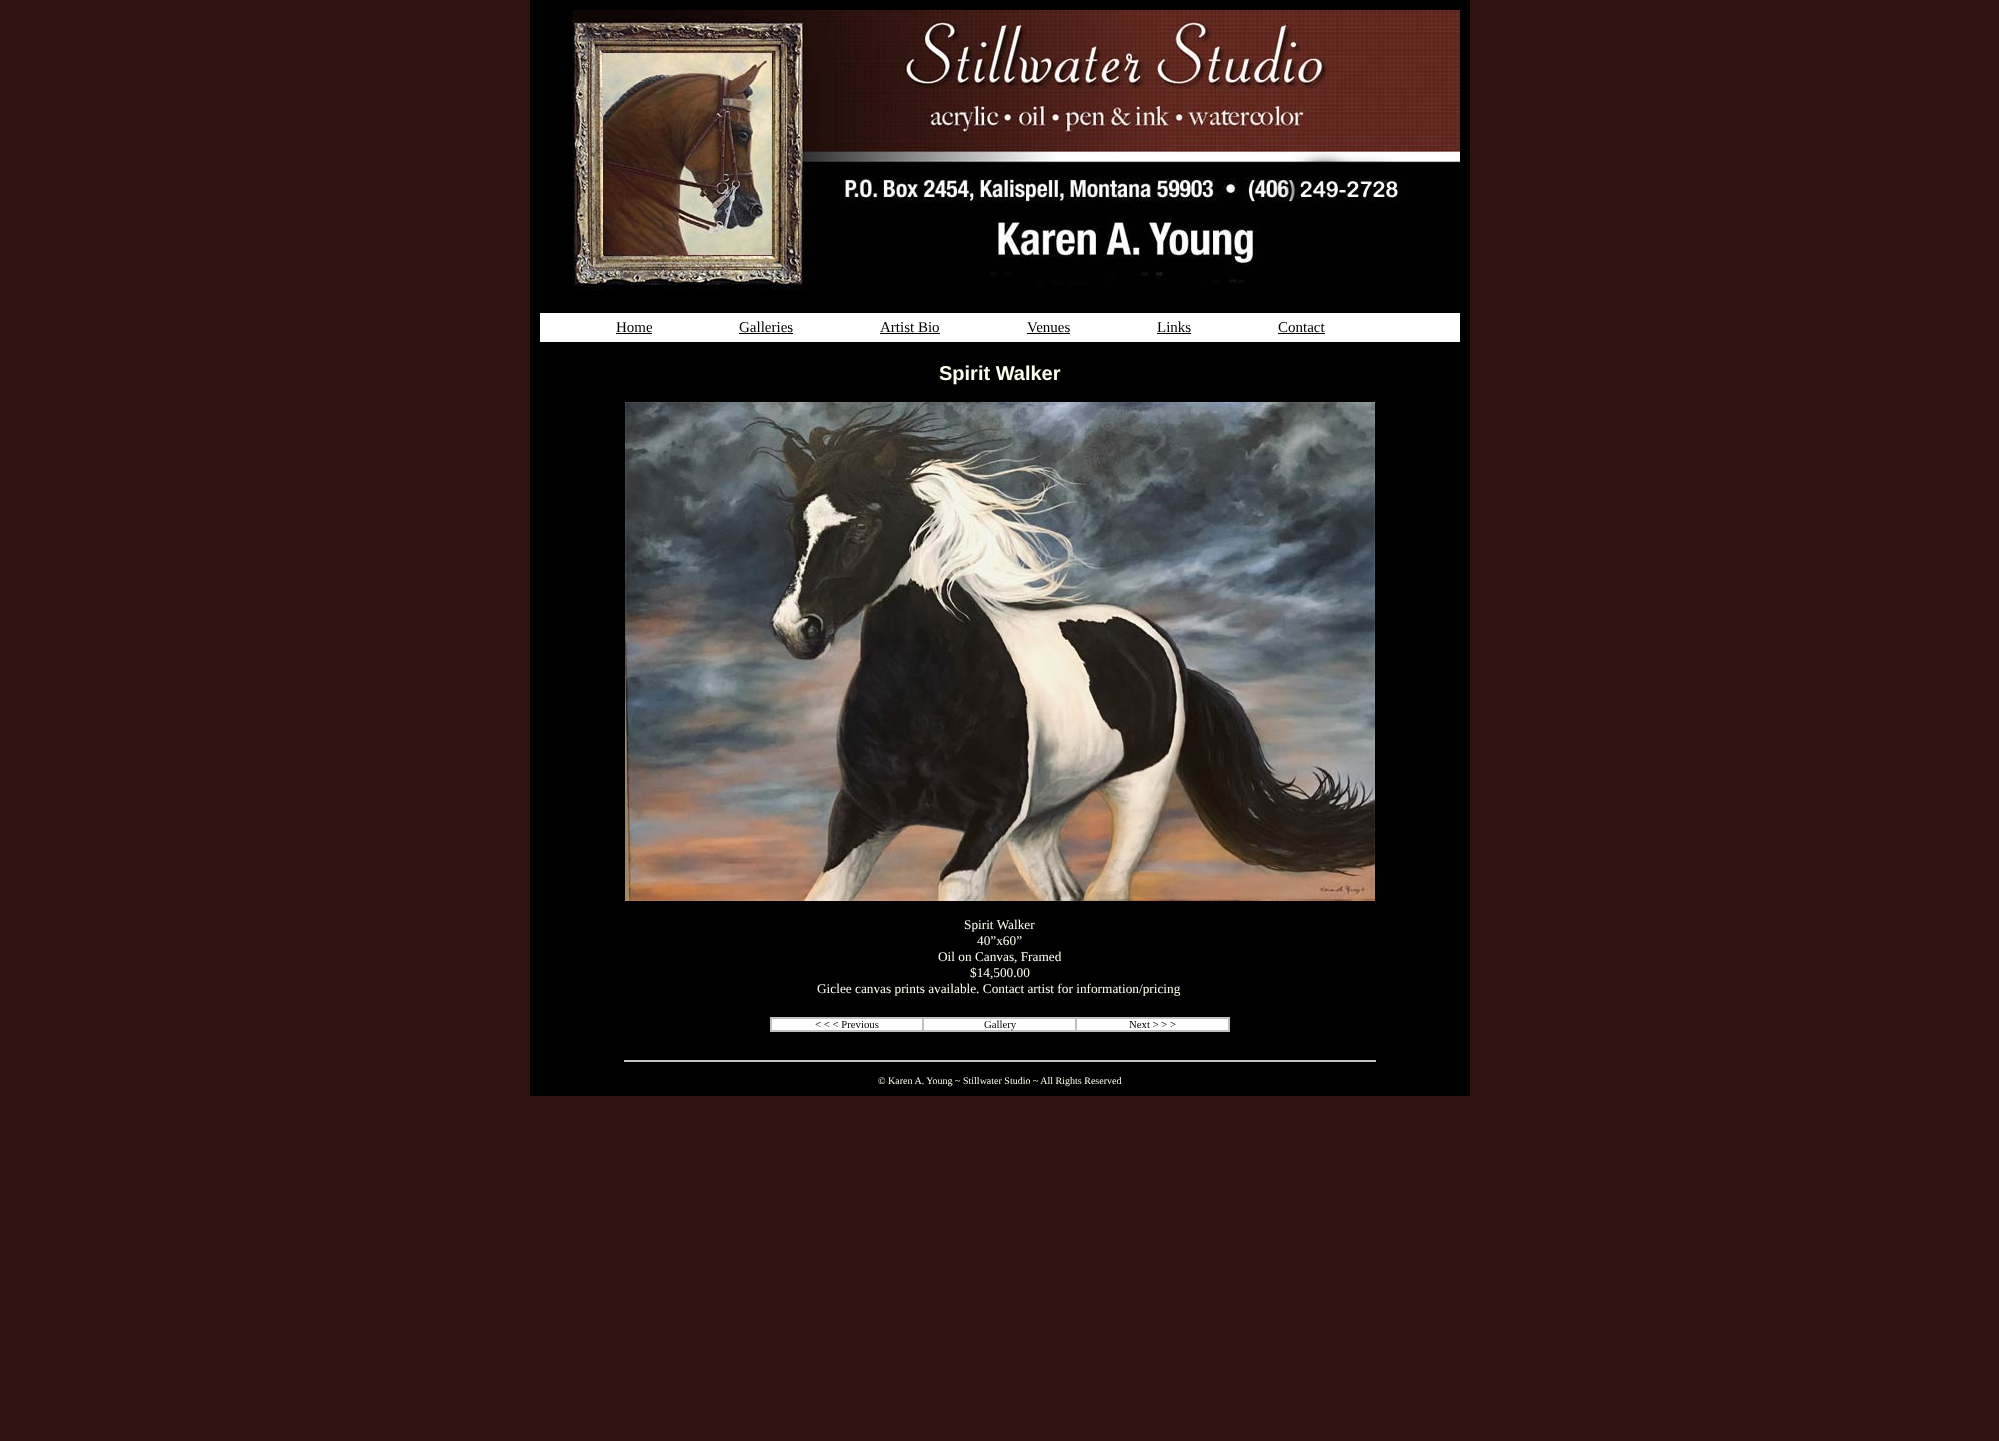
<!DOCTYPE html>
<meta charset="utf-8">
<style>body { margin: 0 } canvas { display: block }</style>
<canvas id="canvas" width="1999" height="1441"></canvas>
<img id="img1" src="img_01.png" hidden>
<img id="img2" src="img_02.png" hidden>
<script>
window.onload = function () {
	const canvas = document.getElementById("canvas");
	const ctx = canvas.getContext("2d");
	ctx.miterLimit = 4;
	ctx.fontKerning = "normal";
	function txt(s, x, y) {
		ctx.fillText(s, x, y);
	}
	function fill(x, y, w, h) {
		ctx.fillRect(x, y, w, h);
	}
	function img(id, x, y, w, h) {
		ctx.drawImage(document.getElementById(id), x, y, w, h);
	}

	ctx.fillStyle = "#2F130F";
	fill(0, 0, 1999, 1441);
	ctx.fillStyle = "#000000";
	fill(530, 0, 940, 1096);
	img("img1", 572, 10, 888, 281);
	ctx.fillStyle = "#FFFFFF";
	fill(540, 313, 920, 29);
	ctx.fillStyle = "#000000";
	fill(616, 333, 36, 1);
	fill(739, 333, 54, 1);
	fill(880, 333, 60, 1);
	fill(1027, 333, 43, 1);
	fill(1157, 333, 34, 1);
	fill(1278, 333, 47, 1);
	img("img2", 625, 402, 750, 499);
	ctx.fillStyle = "#FFFFFF";
	fill(772, 1019, 456, 11);
	ctx.strokeStyle = "#C0C0C0";
	ctx.strokeRect(770.5, 1017.5, 459, 14);
	ctx.strokeRect(771.5, 1018.5, 151, 12);
	ctx.strokeRect(923.5, 1018.5, 152, 12);
	ctx.strokeRect(1076.5, 1018.5, 152, 12);
	ctx.fillStyle = "#C0C0C0";
	fill(624, 1060, 752, 2);
	ctx.font = "15px Liberation Serif";
	ctx.fillStyle = "#000000";
	txt("Home", 616, 332);
	txt("Galleries", 739, 332);
	txt("Artist Bio", 880, 332);
	txt("Venues", 1027, 332);
	txt("Links", 1157, 332);
	txt("Contact", 1278, 332);
	ctx.font = "bold 20px Liberation Sans";
	ctx.fillStyle = "#FFFFF0";
	txt("Spirit Walker", 939, 380);
	ctx.font = "13.3px Liberation Serif";
	txt("Spirit Walker", 964, 929);
	txt("40”x60”", 977, 945);
	txt("Oil on Canvas, Framed", 938, 961);
	txt("$14,500.00", 970, 977);
	txt("Giclee canvas prints available. Contact artist for information/pricing", 817, 993);
	ctx.font = "10.75px Liberation Serif";
	ctx.fillStyle = "#000000";
	txt("< < < Previous", 815, 1028);
	txt("Gallery", 984, 1028);
	txt("Next > > >", 1129, 1028);
	ctx.font = "10px Liberation Serif";
	ctx.fillStyle = "#FFFFF0";
	txt("© Karen A. Young ~ Stillwater Studio ~ All Rights Reserved", 878, 1084);
};
</script>
